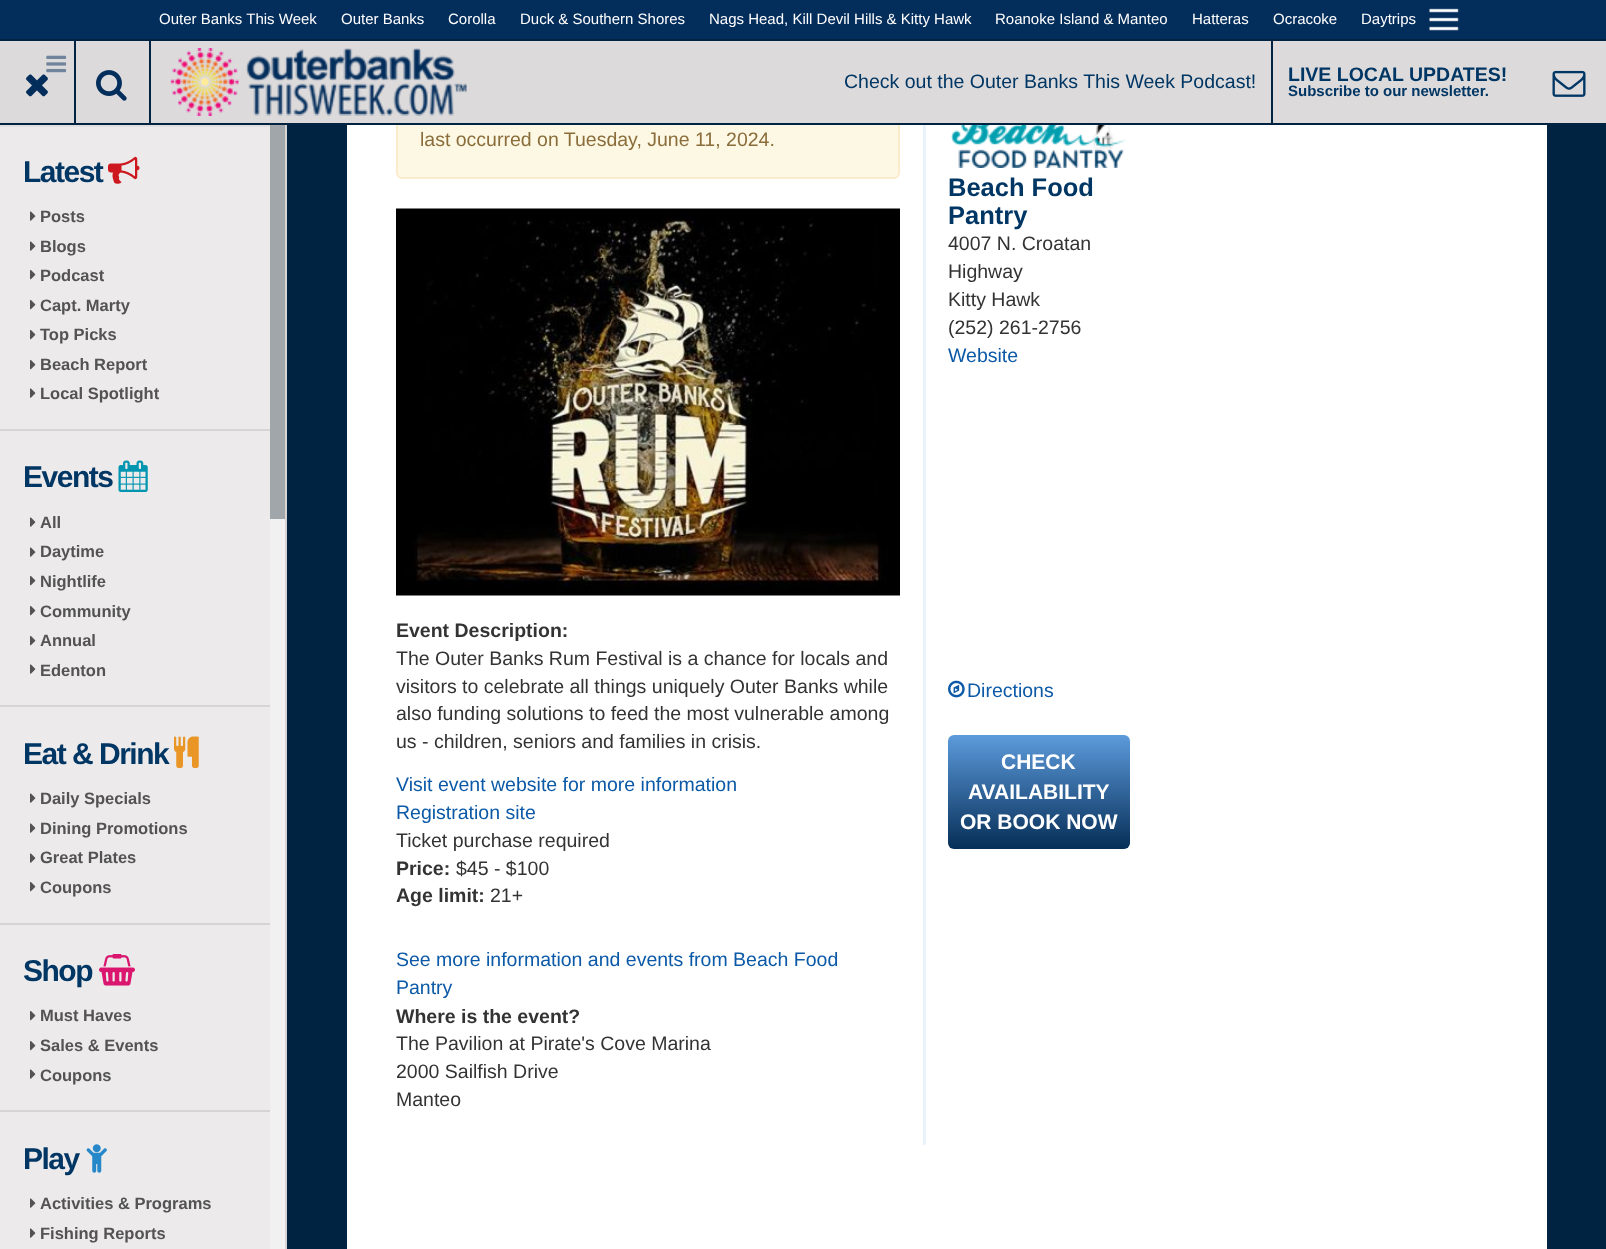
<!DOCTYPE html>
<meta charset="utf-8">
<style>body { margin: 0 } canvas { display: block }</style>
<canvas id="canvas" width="1606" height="1249"></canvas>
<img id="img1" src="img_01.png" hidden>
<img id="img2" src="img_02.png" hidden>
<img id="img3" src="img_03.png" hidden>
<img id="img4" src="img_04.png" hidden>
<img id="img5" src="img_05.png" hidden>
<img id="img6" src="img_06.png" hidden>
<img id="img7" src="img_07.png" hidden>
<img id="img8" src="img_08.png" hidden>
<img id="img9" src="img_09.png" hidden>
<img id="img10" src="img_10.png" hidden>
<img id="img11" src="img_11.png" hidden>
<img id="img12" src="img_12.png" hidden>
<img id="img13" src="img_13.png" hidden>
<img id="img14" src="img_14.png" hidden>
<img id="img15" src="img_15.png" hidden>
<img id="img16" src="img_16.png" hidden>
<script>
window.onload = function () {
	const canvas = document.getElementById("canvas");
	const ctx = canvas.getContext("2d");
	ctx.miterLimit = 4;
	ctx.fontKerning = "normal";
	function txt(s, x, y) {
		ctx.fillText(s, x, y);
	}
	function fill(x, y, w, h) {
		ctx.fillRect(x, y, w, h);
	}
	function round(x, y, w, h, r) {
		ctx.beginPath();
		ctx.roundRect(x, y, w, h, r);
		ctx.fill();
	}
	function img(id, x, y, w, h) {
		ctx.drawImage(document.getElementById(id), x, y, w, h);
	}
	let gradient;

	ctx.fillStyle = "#002341";
	fill(0, 0, 1606, 1249);
	ctx.fillStyle = "#032D5B";
	fill(0, 0, 1606, 39);
	img("img1", 1429, 8, 30, 23);
	ctx.fillStyle = "#FFFFFF";
	fill(347, 125, 1200, 1124);
	ctx.fillStyle = "#FCF8E3";
	ctx.beginPath();
	ctx.roundRect(397, 76, 502, 102, 5);
	ctx.fill();
	ctx.strokeStyle = "#FAEBCC";
	ctx.lineWidth = 2;
	ctx.stroke();
	ctx.fillStyle = "#DCDADB";
	fill(0, 41, 1606, 82);
	ctx.fillStyle = "#002341";
	fill(396, 123, 504, 2);
	fill(74, 41, 2, 82);
	img("img2", 46, 55, 21, 18);
	img("img3", 26, 74, 22, 23);
	fill(149, 41, 2, 82);
	img("img4", 96, 70, 31, 31);
	img("img5", 170, 48, 297, 68);
	fill(1271, 41, 2, 82);
	img("img6", 1552, 70, 34, 27);
	ctx.fillStyle = "#ECEAEA";
	fill(0, 127, 270, 1122);
	ctx.fillStyle = "#D6D4D4";
	fill(285, 125, 2, 1124);
	ctx.fillStyle = "#E0DEDE";
	fill(0, 125, 270, 2);
	ctx.fillStyle = "#D6D4D4";
	fill(0, 429, 270, 2);
	img("img7", 108, 156, 32, 28);
	img("img8", 30, 211, 6, 10);
	img("img8", 30, 241, 6, 10);
	img("img9", 30, 270, 6, 10);
	img("img9", 30, 300, 6, 10);
	img("img9", 30, 330, 6, 10);
	img("img9", 30, 360, 6, 10);
	img("img8", 30, 388, 6, 10);
	fill(0, 705, 270, 2);
	img("img10", 118, 460, 30, 32);
	img("img8", 30, 517, 6, 10);
	img("img8", 30, 547, 6, 10);
	img("img9", 30, 576, 6, 10);
	img("img9", 30, 606, 6, 10);
	img("img9", 30, 636, 6, 10);
	img("img8", 30, 664, 6, 10);
	fill(0, 923, 270, 2);
	img("img11", 174, 736, 25, 32);
	img("img8", 30, 793, 6, 10);
	img("img8", 30, 823, 6, 10);
	img("img8", 30, 853, 6, 10);
	img("img9", 30, 882, 6, 10);
	fill(0, 1110, 270, 2);
	img("img12", 99, 954, 36, 32);
	img("img9", 30, 1011, 6, 10);
	img("img9", 30, 1041, 6, 10);
	img("img8", 30, 1069, 6, 10);
	img("img13", 86, 1144, 21, 29);
	img("img8", 30, 1198, 6, 10);
	img("img8", 30, 1228, 6, 10);
	ctx.fillStyle = "#F1F1F1";
	fill(270, 519, 15, 730);
	ctx.fillStyle = "#A0A6A9";
	fill(270, 125, 15, 394);
	ctx.fillStyle = "#EAF2FC";
	fill(923, 125, 3, 1020);
	img("img14", 396, 208, 504, 388);
	img("img15", 951, 125, 175, 43);
	img("img16", 948, 680, 17, 18);
	gradient = ctx.createLinearGradient(1039, 735, 1039, 849);
	gradient.addColorStop(0, "#5C9BDC");
	gradient.addColorStop(1, "#062E57");
	ctx.fillStyle = gradient;
	round(948, 735, 182, 114, 6);
	ctx.font = "15px Liberation Sans";
	ctx.fillStyle = "#FFFFFF";
	txt("Outer Banks This Week", 159, 24);
	txt("Outer Banks", 341, 24);
	txt("Corolla", 448, 24);
	txt("Duck & Southern Shores", 520, 24);
	txt("Nags Head, Kill Devil Hills & Kitty Hawk", 709, 24);
	txt("Roanoke Island & Manteo", 995, 24);
	txt("Hatteras", 1192, 24);
	txt("Ocracoke", 1273, 24);
	txt("Daytrips", 1361, 24);
	ctx.font = "19.5px Liberation Sans";
	ctx.fillStyle = "#003664";
	txt("Check out the Outer Banks This Week Podcast!", 844, 88);
	ctx.font = "bold 19.5px Liberation Sans";
	txt("LIVE LOCAL UPDATES!", 1288, 81);
	ctx.font = "bold 15px Liberation Sans";
	txt("Subscribe to our newsletter.", 1288, 96);
	ctx.letterSpacing = "-1.5px";
	ctx.font = "bold 30px Liberation Sans";
	txt("Latest", 23, 182);
	ctx.letterSpacing = "0px";
	ctx.font = "bold 16.5px Liberation Sans";
	ctx.fillStyle = "#535353";
	txt("Posts", 40, 222);
	txt("Blogs", 40, 252);
	txt("Podcast", 40, 281);
	txt("Capt. Marty", 40, 311);
	txt("Top Picks", 40, 340);
	txt("Beach Report", 40, 370);
	txt("Local Spotlight", 40, 399);
	ctx.letterSpacing = "-1.5px";
	ctx.font = "bold 30px Liberation Sans";
	ctx.fillStyle = "#003664";
	txt("Events", 23, 487);
	ctx.letterSpacing = "0px";
	ctx.font = "bold 16.5px Liberation Sans";
	ctx.fillStyle = "#535353";
	txt("All", 40, 528);
	txt("Daytime", 40, 557);
	txt("Nightlife", 40, 587);
	txt("Community", 40, 617);
	txt("Annual", 40, 646);
	txt("Edenton", 40, 676);
	ctx.letterSpacing = "-1.5px";
	ctx.font = "bold 30px Liberation Sans";
	ctx.fillStyle = "#003664";
	txt("Eat & Drink", 23, 764);
	ctx.letterSpacing = "0px";
	ctx.font = "bold 16.5px Liberation Sans";
	ctx.fillStyle = "#535353";
	txt("Daily Specials", 40, 804);
	txt("Dining Promotions", 40, 834);
	txt("Great Plates", 40, 863);
	txt("Coupons", 40, 893);
	ctx.letterSpacing = "-1.5px";
	ctx.font = "bold 30px Liberation Sans";
	ctx.fillStyle = "#003664";
	txt("Shop", 23, 981);
	ctx.letterSpacing = "0px";
	ctx.font = "bold 16.5px Liberation Sans";
	ctx.fillStyle = "#535353";
	txt("Must Haves", 40, 1021);
	txt("Sales & Events", 40, 1051);
	txt("Coupons", 40, 1081);
	ctx.letterSpacing = "-1.5px";
	ctx.font = "bold 30px Liberation Sans";
	ctx.fillStyle = "#003664";
	txt("Play", 23, 1169);
	ctx.letterSpacing = "0px";
	ctx.font = "bold 16.5px Liberation Sans";
	ctx.fillStyle = "#535353";
	txt("Activities & Programs", 40, 1209);
	txt("Fishing Reports", 40, 1239);
	ctx.font = "19.5px Liberation Sans";
	ctx.fillStyle = "#8A6D3B";
	txt("last occurred on Tuesday, June 11, 2024.", 420, 146);
	ctx.font = "bold 19.5px Liberation Sans";
	ctx.fillStyle = "#333333";
	txt("Event Description:", 396, 637);
	ctx.font = "19.5px Liberation Sans";
	txt("The Outer Banks Rum Festival is a chance for locals and", 396, 665);
	txt("visitors to celebrate all things uniquely Outer Banks while", 396, 693);
	txt("also funding solutions to feed the most vulnerable among", 396, 720);
	txt("us - children, seniors and families in crisis.", 396, 748);
	ctx.fillStyle = "#0B59A7";
	txt("Visit event website for more information", 396, 791);
	txt("Registration site", 396, 819);
	ctx.fillStyle = "#333333";
	txt("Ticket purchase required", 396, 847);
	ctx.font = "bold 19.5px Liberation Sans";
	txt("Price:", 396, 875);
	ctx.font = "19.5px Liberation Sans";
	txt("$45 - $100", 456, 875);
	ctx.font = "bold 19.5px Liberation Sans";
	txt("Age limit:", 396, 902);
	ctx.font = "19.5px Liberation Sans";
	txt("21+", 490, 902);
	ctx.fillStyle = "#0B59A7";
	txt("See more information and events from Beach Food", 396, 966);
	txt("Pantry", 396, 994);
	ctx.font = "bold 19.5px Liberation Sans";
	ctx.fillStyle = "#333333";
	txt("Where is the event?", 396, 1023);
	ctx.font = "19.5px Liberation Sans";
	txt("The Pavilion at Pirate's Cove Marina", 396, 1050);
	txt("2000 Sailfish Drive", 396, 1078);
	txt("Manteo", 396, 1106);
	ctx.font = "bold 25.5px Liberation Sans";
	ctx.fillStyle = "#003664";
	txt("Beach Food", 948, 196);
	txt("Pantry", 948, 224);
	ctx.font = "19.5px Liberation Sans";
	ctx.fillStyle = "#333333";
	txt("4007 N. Croatan", 948, 250);
	txt("Highway", 948, 278);
	txt("Kitty Hawk", 948, 306);
	txt("(252) 261-2756", 948, 334);
	ctx.fillStyle = "#0B59A7";
	txt("Website", 948, 362);
	txt("Directions", 967, 697);
	ctx.font = "bold 21px Liberation Sans";
	ctx.fillStyle = "#FFFFFF";
	txt("CHECK", 1001, 769);
	txt("AVAILABILITY", 968, 799);
	txt("OR BOOK NOW", 960, 829);
};
</script>
